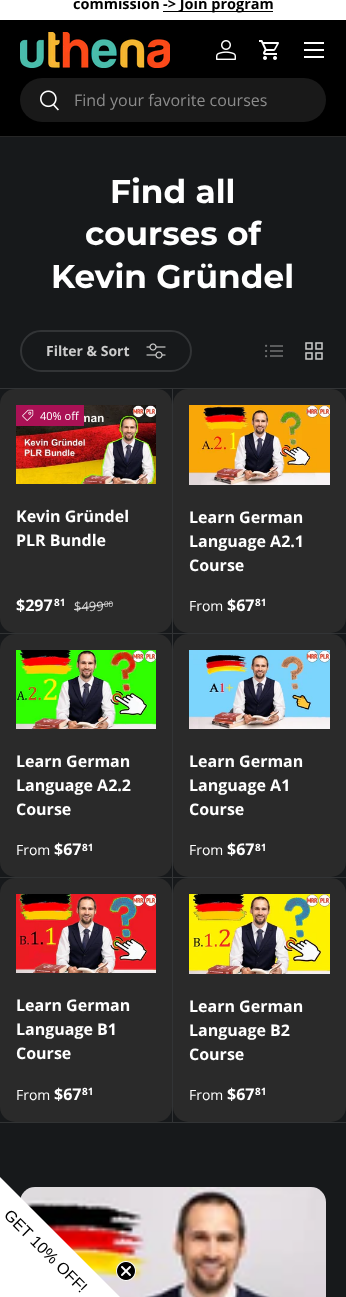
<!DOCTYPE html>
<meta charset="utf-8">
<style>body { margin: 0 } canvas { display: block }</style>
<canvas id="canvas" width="346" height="1297"></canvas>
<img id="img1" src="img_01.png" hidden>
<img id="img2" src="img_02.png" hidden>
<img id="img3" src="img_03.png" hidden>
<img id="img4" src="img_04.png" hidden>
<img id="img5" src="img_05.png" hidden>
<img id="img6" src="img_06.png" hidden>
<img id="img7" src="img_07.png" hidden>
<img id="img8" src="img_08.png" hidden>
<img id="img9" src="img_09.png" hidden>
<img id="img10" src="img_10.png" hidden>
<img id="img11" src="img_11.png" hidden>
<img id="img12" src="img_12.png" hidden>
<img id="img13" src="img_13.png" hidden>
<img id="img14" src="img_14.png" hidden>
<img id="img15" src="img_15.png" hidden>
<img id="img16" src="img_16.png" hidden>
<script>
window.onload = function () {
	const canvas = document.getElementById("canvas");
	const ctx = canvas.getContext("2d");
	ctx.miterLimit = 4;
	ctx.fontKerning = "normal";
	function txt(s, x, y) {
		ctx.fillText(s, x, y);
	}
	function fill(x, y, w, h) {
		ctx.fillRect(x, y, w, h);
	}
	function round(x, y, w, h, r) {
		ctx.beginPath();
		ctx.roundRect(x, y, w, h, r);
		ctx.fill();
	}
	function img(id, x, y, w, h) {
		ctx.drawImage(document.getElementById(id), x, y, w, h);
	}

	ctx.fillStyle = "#17191B";
	fill(0, 0, 346, 1297);
	ctx.fillStyle = "#FFFFFF";
	fill(0, 0, 346, 20);
	ctx.fillStyle = "#000000";
	fill(163, 11, 110, 1);
	fill(0, 20, 346, 116);
	ctx.fillStyle = "#262626";
	fill(0, 136, 346, 1);
	img("img1", 20, 32, 150, 36);
	img("img2", 216, 40, 20, 20);
	img("img3", 259, 40, 20, 20);
	ctx.fillStyle = "#FFFFFF";
	fill(304, 42, 20, 2);
	fill(304, 56, 20, 2);
	fill(304, 49, 20, 2);
	ctx.fillStyle = "#191919";
	round(20, 78, 306, 44, 22);
	img("img4", 40, 90, 19, 21);
	ctx.beginPath();
	ctx.roundRect(21, 331, 170, 40, 20);
	ctx.strokeStyle = "#323436";
	ctx.lineWidth = 2;
	ctx.stroke();
	img("img5", 146, 343, 20, 16);
	img("img6", 265, 344, 18, 14);
	img("img7", 305, 342, 18, 18);
	ctx.fillStyle = "#323436";
	fill(0, 388, 346, 1);
	ctx.beginPath();
	ctx.moveTo(173, 389);
	ctx.lineTo(173, 634);
	ctx.lineTo(172, 633);
	ctx.lineTo(172, 389);
	ctx.closePath();
	ctx.fill();
	ctx.fillStyle = "rgba(204, 204, 204, 0.15)";
	ctx.beginPath();
	ctx.moveTo(173, 634);
	ctx.lineTo(0, 634);
	ctx.lineTo(0, 633);
	ctx.lineTo(172, 633);
	ctx.closePath();
	ctx.fill();
	ctx.fillStyle = "#2A2A2A";
	round(0, 389, 172, 244, 15);
	img("img8", 16, 405, 140, 79);
	ctx.fillStyle = "#AA1155";
	fill(16, 405, 68, 21);
	img("img9", 22, 409, 12, 12);
	ctx.fillStyle = "#323436";
	fill(173, 633, 173, 1);
	ctx.fillStyle = "#2A2A2A";
	round(173, 389, 173, 244, 15);
	img("img10", 189, 405, 141, 80);
	ctx.fillStyle = "#323436";
	ctx.beginPath();
	ctx.moveTo(173, 634);
	ctx.lineTo(173, 878);
	ctx.lineTo(172, 877);
	ctx.lineTo(172, 634);
	ctx.closePath();
	ctx.fill();
	ctx.fillStyle = "rgba(204, 204, 204, 0.15)";
	ctx.beginPath();
	ctx.moveTo(173, 878);
	ctx.lineTo(0, 878);
	ctx.lineTo(0, 877);
	ctx.lineTo(172, 877);
	ctx.closePath();
	ctx.fill();
	ctx.fillStyle = "#2A2A2A";
	round(0, 634, 172, 243, 15);
	img("img11", 16, 650, 140, 79);
	ctx.fillStyle = "#323436";
	fill(173, 877, 173, 1);
	ctx.fillStyle = "#2A2A2A";
	round(173, 634, 173, 243, 15);
	img("img12", 189, 650, 141, 79);
	ctx.fillStyle = "#323436";
	ctx.beginPath();
	ctx.moveTo(173, 878);
	ctx.lineTo(173, 1123);
	ctx.lineTo(172, 1122);
	ctx.lineTo(172, 878);
	ctx.closePath();
	ctx.fill();
	ctx.fillStyle = "rgba(204, 204, 204, 0.15)";
	ctx.beginPath();
	ctx.moveTo(173, 1123);
	ctx.lineTo(0, 1123);
	ctx.lineTo(0, 1122);
	ctx.lineTo(172, 1122);
	ctx.closePath();
	ctx.fill();
	ctx.fillStyle = "#2A2A2A";
	round(0, 878, 172, 244, 15);
	img("img13", 16, 894, 140, 79);
	ctx.fillStyle = "#323436";
	fill(173, 1122, 173, 1);
	ctx.fillStyle = "#2A2A2A";
	round(173, 878, 173, 244, 15);
	img("img14", 189, 894, 141, 80);
	img("img15", 20, 1187, 306, 110);
	ctx.fillStyle = "#FFFFFF";
	ctx.beginPath();
	ctx.moveTo(0, 1177);
	ctx.lineTo(0, 1297);
	ctx.lineTo(120, 1297);
	ctx.closePath();
	ctx.fill();
	img("img16", 116, 1261, 20, 20);
	ctx.font = "bold 14.5px Open Sans";
	ctx.fillStyle = "#000000";
	txt("commission", 73, 9);
	txt("-> Join program", 163, 9);
	ctx.font = "16px Open Sans";
	ctx.fillStyle = "#8C8C8C";
	txt("Find your favorite courses", 74, 106);
	ctx.font = "bold 32.75px Montserrat";
	ctx.fillStyle = "#FFFFFF";
	txt("Find all", 110, 203);
	txt("courses of", 85, 245);
	txt("Kevin Gründel", 51, 288);
	ctx.font = "bold 14px Open Sans";
	ctx.fillStyle = "#CCCCCC";
	txt("Filter & Sort", 46, 356);
	ctx.font = "11px Open Sans";
	ctx.fillStyle = "#FFFFFF";
	txt("40% off", 40, 420);
	ctx.font = "bold 16px Open Sans";
	txt("Kevin Gründel", 16, 522);
	txt("PLR Bundle", 16, 546);
	txt("$297", 16, 611);
	ctx.font = "bold 10px Open Sans";
	txt("81", 54, 606);
	ctx.font = "13px Open Sans";
	ctx.fillStyle = "#D4D4D4";
	txt("$499", 74, 611);
	ctx.fillStyle = "rgba(255, 255, 255, 0.8)";
	ctx.beginPath();
	ctx.moveTo(74, 609);
	ctx.lineTo(112.5, 602.5);
	ctx.lineTo(112.5, 603.5);
	ctx.lineTo(74, 610);
	ctx.closePath();
	ctx.fill();
	ctx.font = "8px Open Sans";
	ctx.fillStyle = "#DADADA";
	txt("00", 104, 607);
	ctx.font = "bold 16px Open Sans";
	ctx.fillStyle = "#FFFFFF";
	txt("Learn German", 189, 523);
	txt("Language A2.1", 189, 547);
	txt("Course", 189, 571);
	ctx.font = "14px Open Sans";
	txt("From", 189, 611);
	ctx.font = "bold 16px Open Sans";
	txt("$67", 227, 611);
	ctx.font = "bold 10px Open Sans";
	txt("81", 255, 606);
	ctx.font = "bold 16px Open Sans";
	txt("Learn German", 16, 767);
	txt("Language A2.2", 16, 791);
	txt("Course", 16, 815);
	ctx.font = "14px Open Sans";
	txt("From", 16, 855);
	ctx.font = "bold 16px Open Sans";
	txt("$67", 54, 855);
	ctx.font = "bold 10px Open Sans";
	txt("81", 82, 851);
	ctx.font = "bold 16px Open Sans";
	txt("Learn German", 189, 767);
	txt("Language A1", 189, 791);
	txt("Course", 189, 815);
	ctx.font = "14px Open Sans";
	txt("From", 189, 855);
	ctx.font = "bold 16px Open Sans";
	txt("$67", 227, 855);
	ctx.font = "bold 10px Open Sans";
	txt("81", 255, 851);
	ctx.font = "bold 16px Open Sans";
	txt("Learn German", 16, 1011);
	txt("Language B1", 16, 1035);
	txt("Course", 16, 1059);
	ctx.font = "14px Open Sans";
	txt("From", 16, 1100);
	ctx.font = "bold 16px Open Sans";
	txt("$67", 54, 1100);
	ctx.font = "bold 10px Open Sans";
	txt("81", 82, 1095);
	ctx.font = "bold 16px Open Sans";
	txt("Learn German", 189, 1012);
	txt("Language B2", 189, 1036);
	txt("Course", 189, 1060);
	ctx.font = "14px Open Sans";
	txt("From", 189, 1100);
	ctx.font = "bold 16px Open Sans";
	txt("$67", 227, 1100);
	ctx.font = "bold 10px Open Sans";
	txt("81", 255, 1095);
	ctx.font = "16px Liberation Sans";
	ctx.fillStyle = "#000000";
	ctx.save();
	ctx.translate(3, 1216);
	ctx.rotate(45 * Math.PI / 180);
	ctx.fillText("GET 10% OFF!", 0, 0);
	ctx.restore();
};
</script>
